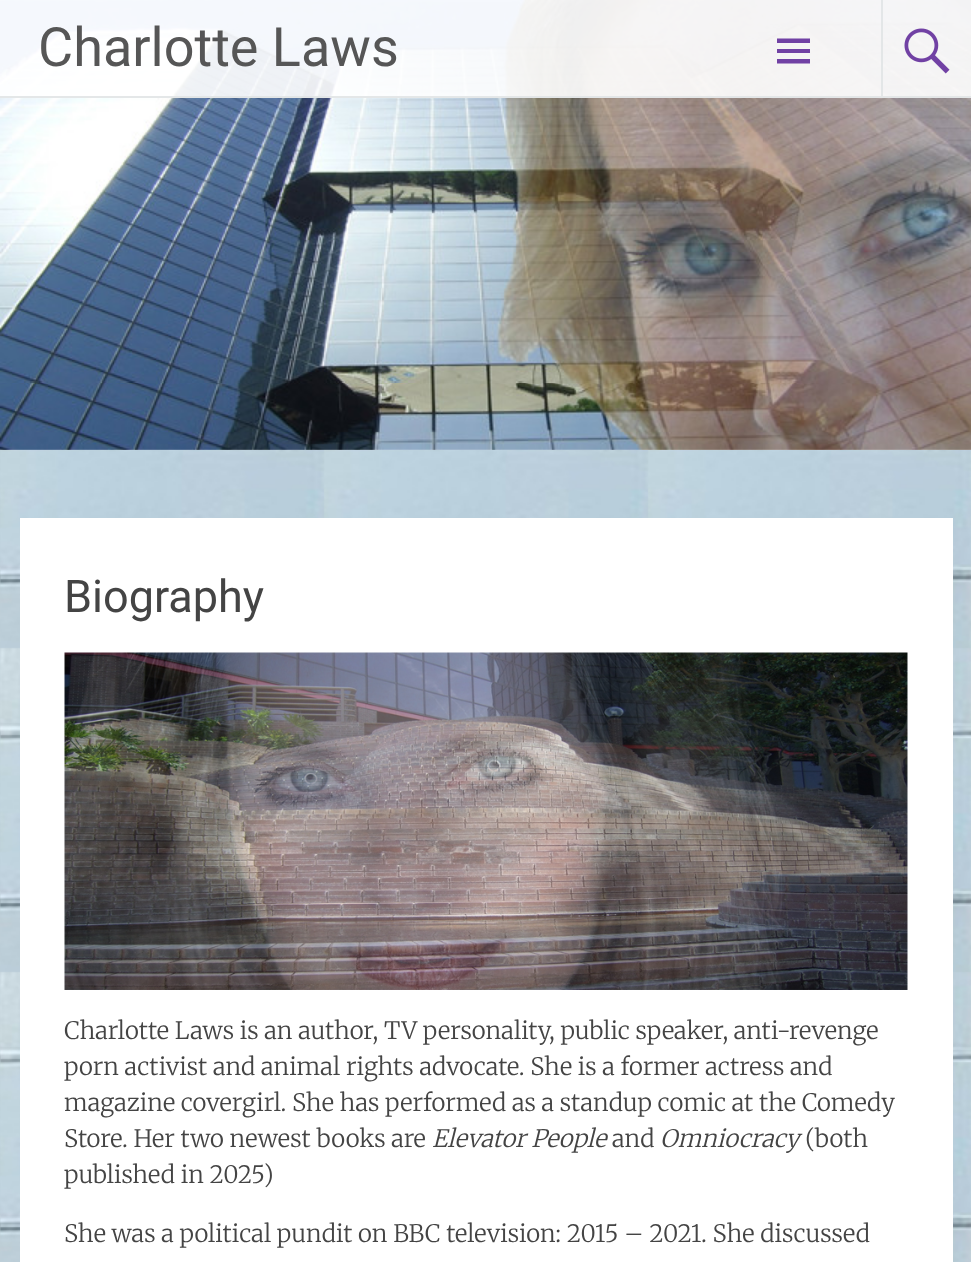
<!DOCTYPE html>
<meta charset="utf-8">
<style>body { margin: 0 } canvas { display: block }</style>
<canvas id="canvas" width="971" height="1262"></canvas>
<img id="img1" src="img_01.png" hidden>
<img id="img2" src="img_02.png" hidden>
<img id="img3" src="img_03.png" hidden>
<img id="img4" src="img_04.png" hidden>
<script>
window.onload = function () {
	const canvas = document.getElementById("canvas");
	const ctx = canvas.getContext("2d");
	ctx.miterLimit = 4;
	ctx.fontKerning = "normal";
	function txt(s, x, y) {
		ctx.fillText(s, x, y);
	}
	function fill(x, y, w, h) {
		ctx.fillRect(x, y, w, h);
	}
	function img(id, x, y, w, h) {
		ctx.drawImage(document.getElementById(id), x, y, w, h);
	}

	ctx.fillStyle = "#FFFFFF";
	fill(0, 0, 971, 1262);
	img("img1", 0, 0, 971, 450);
	ctx.fillStyle = "rgba(255, 255, 255, 0.9)";
	fill(0, 0, 971, 98);
	ctx.fillStyle = "rgba(225, 228, 230, 0.9)";
	fill(0, 96, 971, 2);
	ctx.fillStyle = "rgba(99, 46, 155, 0.9)";
	ctx.beginPath();
	ctx.moveTo(777, 63.5);
	ctx.lineTo(777, 59);
	ctx.lineTo(810, 59);
	ctx.lineTo(810, 63.5);
	ctx.closePath();
	ctx.moveTo(777, 38.5);
	ctx.lineTo(810, 38.5);
	ctx.lineTo(810, 43);
	ctx.lineTo(777, 43);
	ctx.closePath();
	ctx.moveTo(777, 53);
	ctx.lineTo(777, 49);
	ctx.lineTo(810, 49);
	ctx.lineTo(810, 53);
	ctx.closePath();
	ctx.fill();
	ctx.fillStyle = "rgba(225, 228, 230, 0.9)";
	fill(881, 0, 2, 96);
	img("img2", 904, 28, 46, 46);
	img("img3", 0, 450, 971, 812);
	ctx.fillStyle = "#FFFFFF";
	fill(20, 518, 933, 744);
	img("img4", 64, 652, 844, 338);
	ctx.font = "54px Roboto";
	ctx.fillStyle = "#565656";
	txt("Charlotte Laws", 38, 66);
	ctx.font = "45px Roboto";
	ctx.fillStyle = "#444444";
	txt("Biography", 64, 612);
	ctx.font = "300 24px Merriweather";
	txt("Charlotte Laws is an author, TV personality, public speaker, anti-revenge", 64, 1039);
	txt("porn activist and animal rights advocate. She is a former actress and", 64, 1075);
	txt("magazine covergirl. She has performed as a standup comic at the Comedy", 64, 1111);
	txt("Store. Her two newest books are", 64, 1147);
	ctx.font = "italic 300 24px Merriweather";
	txt("Elevator People", 432, 1147);
	ctx.font = "300 24px Merriweather";
	txt("and", 612, 1147);
	ctx.font = "italic 300 24px Merriweather";
	txt("Omniocracy", 660, 1147);
	ctx.font = "300 24px Merriweather";
	txt("(both", 805, 1147);
	txt("published in 2025)", 64, 1183);
	txt("She was a political pundit on BBC television: 2015 – 2021. She discussed", 64, 1242);
};
</script>
